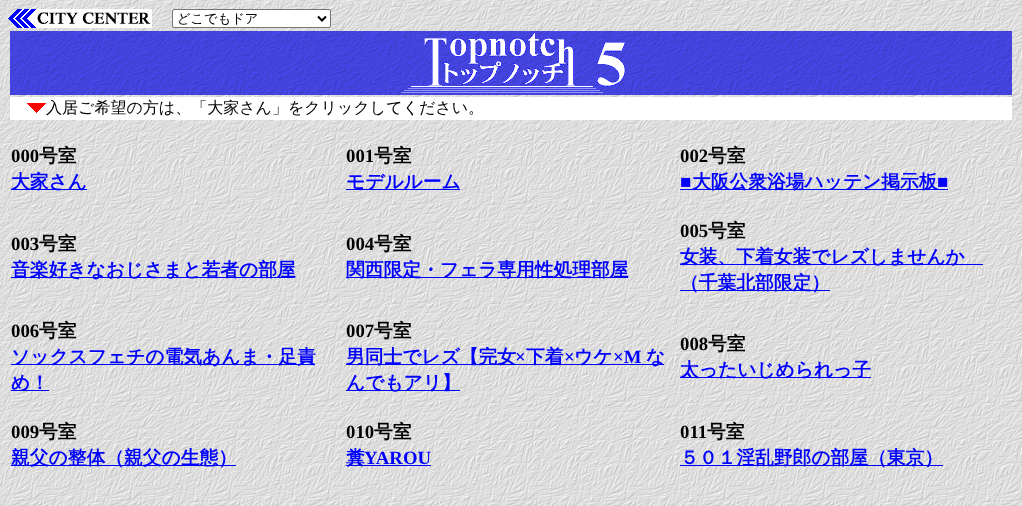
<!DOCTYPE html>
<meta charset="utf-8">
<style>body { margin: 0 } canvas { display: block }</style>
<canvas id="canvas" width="1022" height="506"></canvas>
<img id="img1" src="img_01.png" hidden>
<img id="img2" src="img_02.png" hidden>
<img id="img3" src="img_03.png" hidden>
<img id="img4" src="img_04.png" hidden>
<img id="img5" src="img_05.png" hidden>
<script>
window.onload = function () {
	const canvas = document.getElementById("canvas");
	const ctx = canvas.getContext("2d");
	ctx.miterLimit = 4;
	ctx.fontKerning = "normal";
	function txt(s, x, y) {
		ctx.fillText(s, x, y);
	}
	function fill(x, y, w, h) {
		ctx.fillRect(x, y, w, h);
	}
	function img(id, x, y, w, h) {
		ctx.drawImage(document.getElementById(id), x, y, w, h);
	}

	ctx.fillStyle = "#FFFFFF";
	fill(0, 0, 1022, 506);
	img("img1", 0, 0, 1022, 506);
	img("img2", 8, 9, 144, 19);
	ctx.beginPath();
	ctx.roundRect(172.5, 9.5, 158, 18, 1.5);
	ctx.fill();
	ctx.strokeStyle = "#767676";
	ctx.stroke();
	ctx.beginPath();
	ctx.moveTo(318, 16.5);
	ctx.lineTo(322, 20.5);
	ctx.lineTo(326, 16.5);
	ctx.strokeStyle = "#000000";
	ctx.lineWidth = 2;
	ctx.stroke();
	img("img3", 10, 31, 1002, 64);
	img("img4", 401, 32, 225, 61);
	fill(10, 97, 1002, 23);
	img("img5", 27, 103, 19, 10);
	ctx.fillStyle = "#0000FF";
	fill(11, 189, 76, 1);
	fill(346, 189, 114, 1);
	fill(680, 189, 268, 1);
	fill(11, 277, 284, 1);
	fill(346, 277, 282, 1);
	fill(680, 264, 303, 1);
	fill(680, 290, 150, 1);
	fill(11, 364, 304, 1);
	fill(11, 390, 38, 1);
	fill(346, 364, 318, 1);
	fill(346, 390, 114, 1);
	fill(680, 377, 191, 1);
	fill(11, 465, 225, 1);
	fill(346, 465, 85, 1);
	fill(680, 465, 263, 1);
	ctx.font = "500 13.25px WenQuanYi Zen Hei";
	ctx.fillStyle = "#000000";
	txt("どこでもドア", 177, 23);
	ctx.font = "500 16px WenQuanYi Zen Hei";
	txt("入居ご希望の方は、「大家さん」をクリックしてください。", 46, 113);
	ctx.font = "bold 18.75px Liberation Serif";
	txt("000", 11, 162);
	ctx.font = "bold 18.75px WenQuanYi Zen Hei";
	txt("号室", 39, 162);
	ctx.fillStyle = "#0000FF";
	txt("大家さん", 11, 188);
	ctx.font = "bold 18.75px Liberation Serif";
	ctx.fillStyle = "#000000";
	txt("001", 346, 162);
	ctx.font = "bold 18.75px WenQuanYi Zen Hei";
	txt("号室", 374, 162);
	ctx.fillStyle = "#0000FF";
	txt("モデルルーム", 346, 188);
	ctx.font = "bold 18.75px Liberation Serif";
	ctx.fillStyle = "#000000";
	txt("002", 680, 162);
	ctx.font = "bold 18.75px WenQuanYi Zen Hei";
	txt("号室", 708, 162);
	ctx.font = "bold 18.75px Liberation Serif";
	ctx.fillStyle = "#0000FF";
	txt("■", 680, 188);
	ctx.font = "bold 18.75px WenQuanYi Zen Hei";
	txt("大阪公衆浴場ハッテン掲示板", 692, 188);
	ctx.font = "bold 18.75px Liberation Serif";
	txt("■", 937, 188);
	ctx.fillStyle = "#000000";
	txt("003", 11, 250);
	ctx.font = "bold 18.75px WenQuanYi Zen Hei";
	txt("号室", 39, 250);
	ctx.fillStyle = "#0000FF";
	txt("音楽好きなおじさまと若者の部屋", 11, 276);
	ctx.font = "bold 18.75px Liberation Serif";
	ctx.fillStyle = "#000000";
	txt("004", 346, 250);
	ctx.font = "bold 18.75px WenQuanYi Zen Hei";
	txt("号室", 374, 250);
	ctx.fillStyle = "#0000FF";
	txt("関西限定・フェラ専用性処理部屋", 346, 276);
	ctx.font = "bold 18.75px Liberation Serif";
	ctx.fillStyle = "#000000";
	txt("005", 680, 237);
	ctx.font = "bold 18.75px WenQuanYi Zen Hei";
	txt("号室", 708, 237);
	ctx.fillStyle = "#0000FF";
	txt("女装、下着女装でレズしませんか", 680, 263);
	txt("（千葉北部限定）", 680, 289);
	ctx.font = "bold 18.75px Liberation Serif";
	ctx.fillStyle = "#000000";
	txt("006", 11, 337);
	ctx.font = "bold 18.75px WenQuanYi Zen Hei";
	txt("号室", 39, 337);
	ctx.fillStyle = "#0000FF";
	txt("ソックスフェチの電気あんま・足責", 11, 363);
	txt("め！", 11, 389);
	ctx.font = "bold 18.75px Liberation Serif";
	ctx.fillStyle = "#000000";
	txt("007", 346, 337);
	ctx.font = "bold 18.75px WenQuanYi Zen Hei";
	txt("号室", 374, 337);
	ctx.fillStyle = "#0000FF";
	txt("男同士でレズ【完女", 346, 363);
	ctx.font = "bold 18.75px Liberation Serif";
	txt("×", 515, 363);
	ctx.font = "bold 18.75px WenQuanYi Zen Hei";
	txt("下着", 526, 363);
	ctx.font = "bold 18.75px Liberation Serif";
	txt("×", 564, 363);
	ctx.font = "bold 18.75px WenQuanYi Zen Hei";
	txt("ウケ", 574, 363);
	ctx.font = "bold 18.75px Liberation Serif";
	txt("×M", 613, 363);
	ctx.font = "bold 18.75px WenQuanYi Zen Hei";
	txt("な", 646, 363);
	txt("んでもアリ】", 346, 389);
	ctx.font = "bold 18.75px Liberation Serif";
	ctx.fillStyle = "#000000";
	txt("008", 680, 350);
	ctx.font = "bold 18.75px WenQuanYi Zen Hei";
	txt("号室", 708, 350);
	ctx.fillStyle = "#0000FF";
	txt("太ったいじめられっ子", 680, 376);
	ctx.font = "bold 18.75px Liberation Serif";
	ctx.fillStyle = "#000000";
	txt("009", 11, 438);
	ctx.font = "bold 18.75px WenQuanYi Zen Hei";
	txt("号室", 39, 438);
	ctx.fillStyle = "#0000FF";
	txt("親父の整体（親父の生態）", 11, 464);
	ctx.font = "bold 18.75px Liberation Serif";
	ctx.fillStyle = "#000000";
	txt("010", 346, 438);
	ctx.font = "bold 18.75px WenQuanYi Zen Hei";
	txt("号室", 374, 438);
	ctx.fillStyle = "#0000FF";
	txt("糞", 346, 464);
	ctx.font = "bold 18.75px Liberation Serif";
	txt("YAROU", 364, 464);
	ctx.fillStyle = "#000000";
	txt("011", 680, 438);
	ctx.font = "bold 18.75px WenQuanYi Zen Hei";
	txt("号室", 707, 438);
	ctx.fillStyle = "#0000FF";
	txt("５０１淫乱野郎の部屋（東京）", 680, 464);
};
</script>
